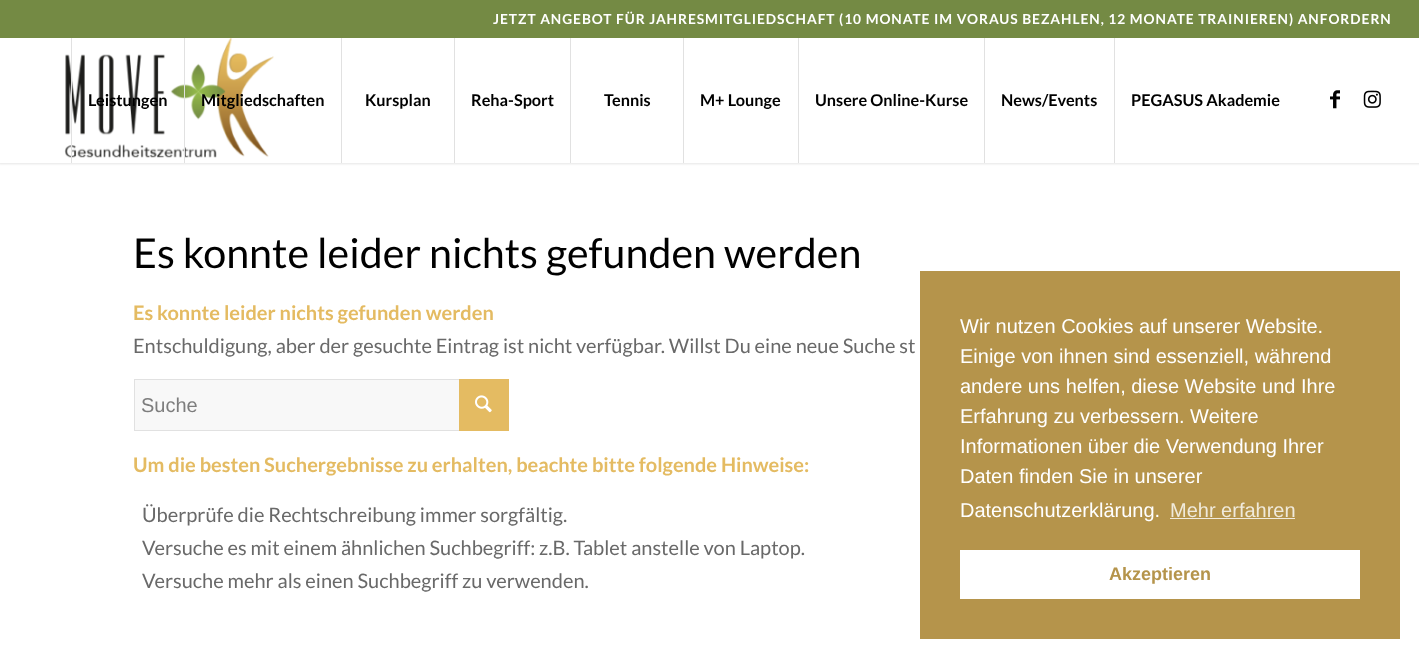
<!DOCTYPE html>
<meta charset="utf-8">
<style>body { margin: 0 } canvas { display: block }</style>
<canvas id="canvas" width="1419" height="658"></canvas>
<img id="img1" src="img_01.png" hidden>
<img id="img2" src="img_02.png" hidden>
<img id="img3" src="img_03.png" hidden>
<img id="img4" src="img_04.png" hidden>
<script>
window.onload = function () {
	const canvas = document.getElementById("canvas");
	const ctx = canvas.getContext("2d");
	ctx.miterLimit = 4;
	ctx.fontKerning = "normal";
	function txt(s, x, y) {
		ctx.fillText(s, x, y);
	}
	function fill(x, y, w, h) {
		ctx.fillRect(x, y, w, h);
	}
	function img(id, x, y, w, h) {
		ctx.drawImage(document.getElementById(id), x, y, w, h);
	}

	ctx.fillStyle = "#FFFFFF";
	fill(0, 0, 1419, 658);
	ctx.fillStyle = "rgba(0, 0, 0, 0.1)";
	ctx.filter = "blur(1px)";
	ctx.beginPath();
	ctx.rect(-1, -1, 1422, 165);
	ctx.fill();
	ctx.filter = "none";
	ctx.fillStyle = "#748A44";
	fill(0, 0, 1419, 38);
	ctx.fillStyle = "#FFFFFF";
	fill(0, 38, 1419, 125);
	img("img1", 64, 38, 210, 120);
	ctx.fillStyle = "#E1E1E1";
	fill(71, 38, 1, 125);
	fill(184, 38, 1, 125);
	fill(341, 38, 1, 125);
	fill(454, 38, 1, 125);
	fill(570, 38, 1, 125);
	fill(683, 38, 1, 125);
	fill(798, 38, 1, 125);
	fill(984, 38, 1, 125);
	fill(1114, 38, 1, 125);
	img("img2", 1330, 90, 10, 19);
	img("img3", 1363, 90, 18, 18);
	ctx.fillStyle = "#F8F8F8";
	fill(135, 380, 324, 50);
	ctx.strokeStyle = "#E1E1E1";
	ctx.strokeRect(134.5, 379.5, 374, 51);
	ctx.fillStyle = "#E4BB62";
	fill(459, 379, 50, 52);
	img("img4", 475, 395, 17, 18);
	ctx.fillStyle = "#B5944B";
	fill(920, 271, 480, 368);
	ctx.fillStyle = "#F0EADB";
	fill(1170, 518, 125, 1);
	ctx.fillStyle = "#FFFFFF";
	fill(960, 550, 400, 49);
	ctx.letterSpacing = "0.96px";
	ctx.font = "bold 13.75px Lato";
	txt("JETZT ANGEBOT FÜR JAHRESMITGLIEDSCHAFT (10 MONATE IM VORAUS BEZAHLEN, 12 MONATE TRAINIEREN) ANFORDERN", 493, 24);
	ctx.letterSpacing = "0px";
	ctx.font = "bold 16.25px Lato";
	ctx.fillStyle = "#000000";
	txt("Leistungen", 88, 106);
	txt("Mitgliedschaften", 201, 106);
	txt("Kursplan", 365, 106);
	txt("Reha-Sport", 471, 106);
	txt("Tennis", 604, 106);
	txt("M+ Lounge", 700, 106);
	txt("Unsere Online-Kurse", 815, 106);
	txt("News/Events", 1001, 106);
	txt("PEGASUS Akademie", 1131, 106);
	ctx.font = "41.25px Lato";
	txt("Es konnte leider nichts gefunden werden", 133, 268);
	ctx.font = "bold 20px Lato";
	ctx.fillStyle = "#E4BB62";
	txt("Es konnte leider nichts gefunden werden", 133, 320);
	ctx.font = "20px Lato";
	ctx.fillStyle = "#696969";
	txt("Entschuldigung, aber der gesuchte Eintrag ist nicht verfügbar. Willst Du eine neue Suche st", 133, 353);
	ctx.font = "20px Liberation Sans";
	ctx.fillStyle = "#7D7D7D";
	txt("Suche", 141, 412);
	ctx.font = "bold 20px Lato";
	ctx.fillStyle = "#E4BB62";
	txt("Um die besten Suchergebnisse zu erhalten, beachte bitte folgende Hinweise:", 133, 472);
	ctx.font = "20px Lato";
	ctx.fillStyle = "#696969";
	txt("Überprüfe die Rechtschreibung immer sorgfältig.", 142, 522);
	txt("Versuche es mit einem ähnlichen Suchbegriff: z.B. Tablet anstelle von Laptop.", 142, 555);
	txt("Versuche mehr als einen Suchbegriff zu verwenden.", 142, 588);
	ctx.font = "20px Liberation Sans";
	ctx.fillStyle = "#FFFFFF";
	txt("Wir nutzen Cookies auf unserer Website.", 960, 333);
	txt("Einige von ihnen sind essenziell, während", 960, 363);
	txt("andere uns helfen, diese Website und Ihre", 960, 393);
	txt("Erfahrung zu verbessern. Weitere", 960, 423);
	txt("Informationen über die Verwendung Ihrer", 960, 453);
	txt("Daten finden Sie in unserer", 960, 483);
	txt("Datenschutzerklärung.", 960, 517);
	ctx.fillStyle = "#F0EADB";
	txt("Mehr erfahren", 1170, 517);
	ctx.font = "bold 18px Liberation Sans";
	ctx.fillStyle = "#B5944B";
	txt("Akzeptieren", 1109, 580);
};
</script>
